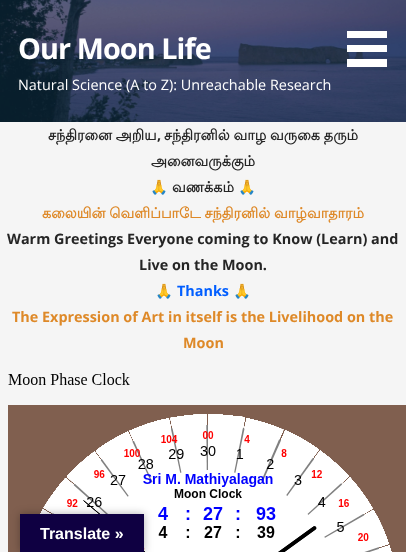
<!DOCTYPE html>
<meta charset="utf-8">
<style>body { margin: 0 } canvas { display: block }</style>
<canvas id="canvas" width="406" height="552"></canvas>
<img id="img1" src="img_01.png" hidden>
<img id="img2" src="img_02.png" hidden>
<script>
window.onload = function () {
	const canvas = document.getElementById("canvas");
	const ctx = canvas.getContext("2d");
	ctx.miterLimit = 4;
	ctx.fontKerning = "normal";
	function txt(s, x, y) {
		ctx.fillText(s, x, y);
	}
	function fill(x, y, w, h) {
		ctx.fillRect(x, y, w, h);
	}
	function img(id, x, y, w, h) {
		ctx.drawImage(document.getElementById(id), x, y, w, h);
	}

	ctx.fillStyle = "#F5F5F5";
	fill(0, 0, 406, 552);
	img("img1", 0, 0, 406, 122);
	ctx.fillStyle = "#FFFFFF";
	fill(347, 31, 40, 7);
	fill(347, 45, 40, 7);
	fill(347, 59, 40, 8);
	img("img2", 8, 373, 398, 179);
	ctx.fillStyle = "rgba(0, 0, 0, 0.3)";
	ctx.filter = "blur(4.5px)";
	ctx.beginPath();
	ctx.rect(20, 514, 124, 38);
	ctx.fill();
	ctx.filter = "none";
	ctx.fillStyle = "#0F0042";
	fill(20, 514, 124, 38);
	ctx.letterSpacing = "-0.9px";
	ctx.font = "bold 28.75px Open Sans";
	ctx.fillStyle = "#FFFFFF";
	txt("Our Moon Life", 18, 59);
	ctx.letterSpacing = "0px";
	ctx.font = "14.4px Open Sans";
	txt("Natural Science (A to Z): Unreachable Research", 18, 90);
	ctx.wordSpacing = "-0.5px";
	ctx.font = "bold 14.4px Lohit Tamil";
	ctx.fillStyle = "#252525";
	txt("சந்திரனை அறிய", 48, 140);
	ctx.wordSpacing = "0px";
	ctx.font = "bold 14.4px Open Sans";
	txt(",", 157, 140);
	ctx.wordSpacing = "-0.5px";
	ctx.font = "bold 14.4px Lohit Tamil";
	txt("சந்திரனில் வாழ வருகை தரும்", 164, 140);
	ctx.wordSpacing = "0px";
	txt("அனைவருக்கும்", 151, 166);
	ctx.font = "bold 14.4px Noto Color Emoji";
	txt("🙏", 150, 192);
	ctx.font = "bold 14.4px Lohit Tamil";
	txt("வணக்கம்", 172, 192);
	ctx.font = "bold 14.4px Noto Color Emoji";
	txt("🙏", 238, 192);
	ctx.wordSpacing = "-0.5px";
	ctx.font = "bold 14.4px Lohit Tamil";
	ctx.fillStyle = "#DE8928";
	txt("கலையின் வெளிப்பாடே சந்திரனில் வாழ்வாதாரம்", 42, 218);
	ctx.wordSpacing = "0px";
	ctx.font = "bold 14.4px Open Sans";
	ctx.fillStyle = "#252525";
	txt("Warm Greetings Everyone coming to Know (Learn) and", 7, 244);
	txt("Live on the Moon.", 139, 270);
	ctx.font = "bold 14.4px Noto Color Emoji";
	ctx.fillStyle = "#005EFF";
	txt("🙏", 155, 296);
	ctx.font = "bold 14.4px Open Sans";
	txt("Thanks", 177, 296);
	ctx.font = "bold 14.4px Noto Color Emoji";
	txt("🙏", 233, 296);
	ctx.font = "bold 14.4px Open Sans";
	ctx.fillStyle = "#DE8928";
	txt("The Expression of Art in itself is the Livelihood on the", 12, 322);
	txt("Moon", 183, 348);
	ctx.font = "bold 16px Liberation Sans";
	ctx.fillStyle = "#FFFFFF";
	txt("Translate »", 40, 539);
};
</script>
